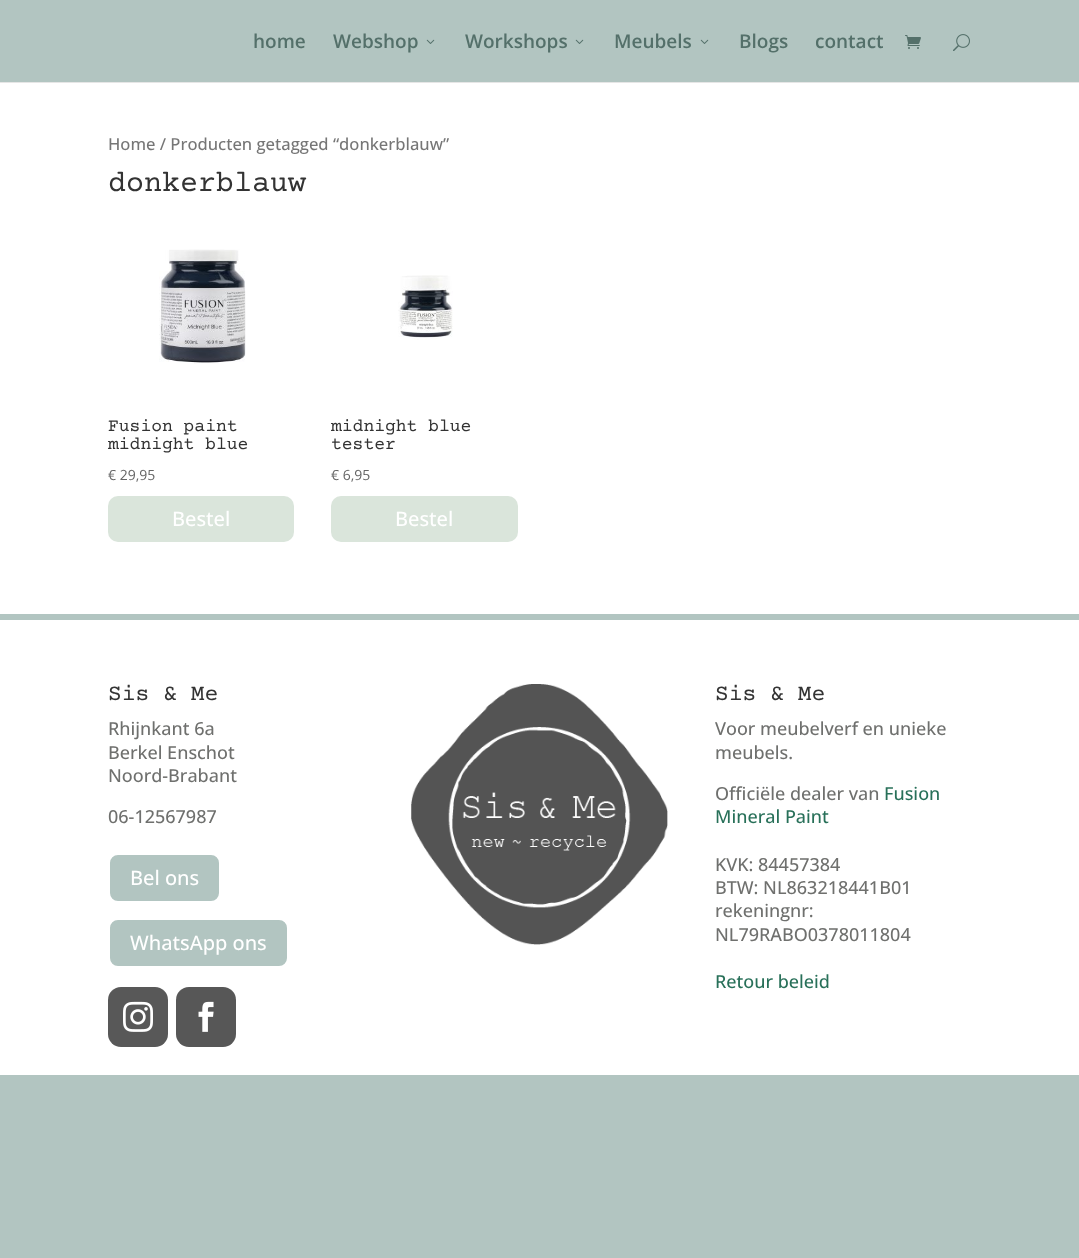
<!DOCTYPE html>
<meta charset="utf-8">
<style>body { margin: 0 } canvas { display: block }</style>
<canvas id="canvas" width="1079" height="1258"></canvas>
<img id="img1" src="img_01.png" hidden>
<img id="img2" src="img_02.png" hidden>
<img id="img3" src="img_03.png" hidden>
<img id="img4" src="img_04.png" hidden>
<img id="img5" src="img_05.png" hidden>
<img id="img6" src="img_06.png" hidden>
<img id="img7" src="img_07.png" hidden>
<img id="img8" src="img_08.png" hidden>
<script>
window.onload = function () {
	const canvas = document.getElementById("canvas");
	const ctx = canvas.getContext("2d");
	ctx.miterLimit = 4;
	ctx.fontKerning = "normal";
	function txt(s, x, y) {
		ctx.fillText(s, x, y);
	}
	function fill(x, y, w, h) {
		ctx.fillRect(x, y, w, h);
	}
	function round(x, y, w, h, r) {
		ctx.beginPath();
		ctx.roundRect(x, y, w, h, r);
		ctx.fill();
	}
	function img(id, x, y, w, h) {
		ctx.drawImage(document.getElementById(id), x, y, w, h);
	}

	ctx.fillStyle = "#B2C5C1";
	fill(0, 0, 1079, 1258);
	ctx.fillStyle = "#E6E6E6";
	fill(0, 82, 1079, 1);
	img("img1", 426, 39, 9, 5);
	img("img1", 575, 39, 9, 5);
	img("img1", 700, 39, 9, 5);
	img("img2", 905, 35, 16, 14);
	img("img3", 953, 34, 17, 17);
	ctx.fillStyle = "#FFFFFF";
	fill(0, 83, 1079, 531);
	img("img4", 159, 249, 87, 115);
	ctx.fillStyle = "#DAE5DB";
	round(108, 496, 186, 46, 10);
	img("img5", 398, 275, 55, 65);
	round(331, 496, 187, 46, 10);
	ctx.fillStyle = "#FFFFFF";
	fill(0, 620, 1079, 455);
	ctx.fillStyle = "#B2C5C1";
	ctx.beginPath();
	ctx.roundRect(109, 854, 111, 48, 9);
	ctx.fill();
	ctx.strokeStyle = "#FFFFFF";
	ctx.lineWidth = 2;
	ctx.stroke();
	ctx.beginPath();
	ctx.roundRect(109, 919, 179, 48, 9);
	ctx.fill();
	ctx.stroke();
	ctx.fillStyle = "#585858";
	round(108, 987, 60, 60, 13);
	img("img6", 123, 1001, 30, 31);
	ctx.fillStyle = "#575757";
	round(176, 987, 60, 60, 13);
	img("img7", 198, 1001, 16, 31);
	img("img8", 411, 684, 257, 261);
	ctx.font = "600 19px Open Sans";
	ctx.fillStyle = "#54706A";
	txt("home", 253, 48);
	txt("Webshop", 333, 48);
	txt("Workshops", 465, 48);
	txt("Meubels", 614, 48);
	txt("Blogs", 739, 48);
	txt("contact", 815, 48);
	ctx.font = "500 16.6px Open Sans";
	ctx.fillStyle = "#767676";
	txt("Home / Producten getagged “donkerblauw”", 108, 150);
	ctx.font = "30px Courier Prime";
	ctx.fillStyle = "#333333";
	txt("donkerblauw", 108, 191);
	ctx.font = "18px Courier Prime";
	txt("Fusion paint", 108, 431);
	txt("midnight blue", 108, 449);
	ctx.font = "14px Open Sans";
	ctx.fillStyle = "#666666";
	txt("€ 29,95", 108, 480);
	ctx.font = "500 20px Open Sans";
	ctx.fillStyle = "#FFFFFF";
	txt("Bestel", 172, 526);
	ctx.font = "18px Courier Prime";
	ctx.fillStyle = "#333333";
	txt("midnight blue", 331, 431);
	txt("tester", 331, 449);
	ctx.font = "14px Open Sans";
	ctx.fillStyle = "#666666";
	txt("€ 6,95", 331, 480);
	ctx.font = "500 20px Open Sans";
	ctx.fillStyle = "#FFFFFF";
	txt("Bestel", 395, 526);
	ctx.font = "23px Courier Prime";
	ctx.fillStyle = "#333333";
	txt("Sis & Me", 108, 700);
	ctx.font = "500 18px Open Sans";
	ctx.fillStyle = "#6F706E";
	txt("Rhijnkant 6a", 108, 735);
	txt("Berkel Enschot", 108, 759);
	txt("Noord-Brabant", 108, 782);
	txt("06-12567987", 108, 823);
	ctx.font = "500 20px Open Sans";
	ctx.fillStyle = "#FFFFFF";
	txt("Bel ons", 130, 885);
	txt("WhatsApp ons", 130, 950);
	ctx.font = "23px Courier Prime";
	ctx.fillStyle = "#333333";
	txt("Sis & Me", 715, 700);
	ctx.font = "500 18px Open Sans";
	ctx.fillStyle = "#6F706E";
	txt("Voor meubelverf en unieke", 715, 735);
	txt("meubels.", 715, 759);
	txt("Officiële dealer van", 715, 800);
	ctx.fillStyle = "#287059";
	txt("Fusion", 884, 800);
	txt("Mineral Paint", 715, 823);
	ctx.fillStyle = "#6F706E";
	txt("KVK: 84457384", 715, 871);
	txt("BTW: NL863218441B01", 715, 894);
	txt("rekeningnr:", 715, 917);
	txt("NL79RABO0378011804", 715, 941);
	ctx.fillStyle = "#287059";
	txt("Retour beleid", 715, 988);
};
</script>
